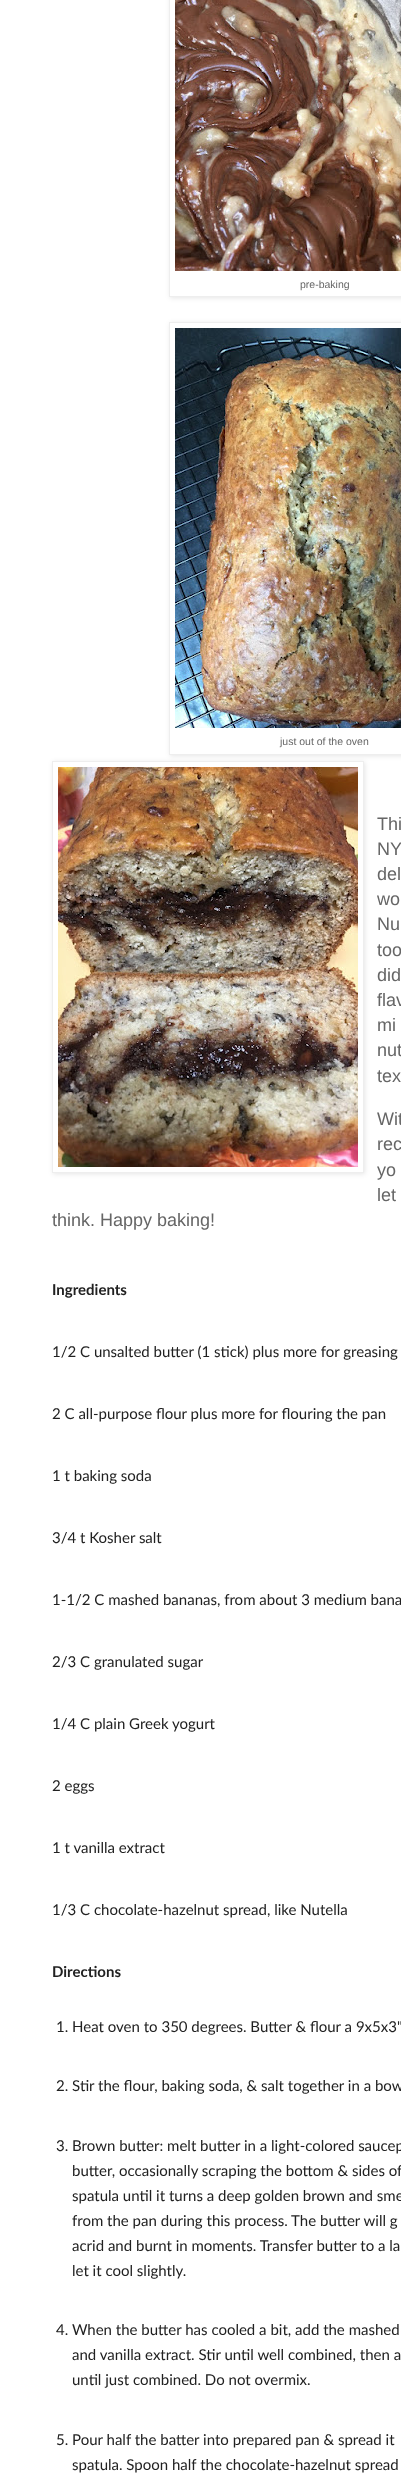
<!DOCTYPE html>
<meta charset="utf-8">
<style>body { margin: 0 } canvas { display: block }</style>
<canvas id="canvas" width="401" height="2491"></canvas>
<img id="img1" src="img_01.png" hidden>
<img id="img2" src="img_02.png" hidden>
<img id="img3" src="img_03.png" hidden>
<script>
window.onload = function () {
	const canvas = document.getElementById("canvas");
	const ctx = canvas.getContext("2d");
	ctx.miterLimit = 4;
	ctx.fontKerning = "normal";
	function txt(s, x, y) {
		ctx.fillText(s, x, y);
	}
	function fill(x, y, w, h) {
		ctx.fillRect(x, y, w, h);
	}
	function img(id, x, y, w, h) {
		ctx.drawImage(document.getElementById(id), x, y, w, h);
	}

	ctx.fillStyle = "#FFFFFF";
	fill(0, 0, 401, 2491);
	ctx.save();
	ctx.beginPath();
	ctx.moveTo(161, 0);
	ctx.lineTo(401, 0);
	ctx.lineTo(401, 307);
	ctx.lineTo(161, 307);
	ctx.closePath();
	ctx.moveTo(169, -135);
	ctx.lineTo(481, -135);
	ctx.lineTo(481, 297);
	ctx.lineTo(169, 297);
	ctx.closePath();
	ctx.clip("evenodd");
	ctx.fillStyle = "rgba(0, 0, 0, 0.1)";
	ctx.filter = "blur(2.5px)";
	ctx.beginPath();
	ctx.rect(170, -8, 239, 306);
	ctx.fill();
	ctx.filter = "none";
	ctx.restore();
	ctx.strokeStyle = "#EEEEEE";
	ctx.strokeRect(169.5, -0.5, 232, 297);
	img("img1", 175, 0, 226, 271);
	ctx.save();
	ctx.beginPath();
	ctx.moveTo(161, 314);
	ctx.lineTo(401, 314);
	ctx.lineTo(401, 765);
	ctx.lineTo(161, 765);
	ctx.closePath();
	ctx.moveTo(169, 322);
	ctx.lineTo(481, 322);
	ctx.lineTo(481, 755);
	ctx.lineTo(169, 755);
	ctx.closePath();
	ctx.clip("evenodd");
	ctx.fillStyle = "rgba(0, 0, 0, 0.1)";
	ctx.filter = "blur(2.5px)";
	ctx.beginPath();
	ctx.rect(170, 323, 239, 433);
	ctx.fill();
	ctx.filter = "none";
	ctx.restore();
	ctx.strokeRect(169.5, 322.5, 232, 432);
	img("img2", 175, 328, 226, 400);
	ctx.save();
	ctx.beginPath();
	ctx.moveTo(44, 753);
	ctx.lineTo(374, 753);
	ctx.lineTo(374, 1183);
	ctx.lineTo(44, 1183);
	ctx.closePath();
	ctx.moveTo(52, 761);
	ctx.lineTo(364, 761);
	ctx.lineTo(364, 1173);
	ctx.lineTo(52, 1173);
	ctx.closePath();
	ctx.clip("evenodd");
	ctx.fillStyle = "rgba(0, 0, 0, 0.1)";
	ctx.filter = "blur(2.5px)";
	ctx.beginPath();
	ctx.rect(53, 762, 312, 412);
	ctx.fill();
	ctx.filter = "none";
	ctx.restore();
	ctx.strokeRect(52.5, 761.5, 311, 411);
	img("img3", 58, 767, 300, 400);
	ctx.font = "10.5px Liberation Sans";
	ctx.fillStyle = "#666666";
	txt("pre-baking", 300, 288);
	txt("just out of the oven", 280, 745);
	ctx.font = "18px Liberation Sans";
	txt("Thi", 377, 830);
	txt("NY", 377, 855);
	txt("del", 377, 880);
	txt("wo", 377, 905);
	txt("Nu", 377, 930);
	txt("too", 377, 956);
	txt("did", 377, 981);
	txt("flav", 377, 1006);
	txt("mi", 377, 1031);
	txt("nut", 377, 1056);
	txt("tex", 377, 1082);
	txt("Wit", 377, 1125);
	txt("rec", 377, 1150);
	txt("yo", 377, 1176);
	txt("let", 377, 1201);
	txt("think. Happy baking!", 52, 1226);
	ctx.font = "bold 15px Lato";
	ctx.fillStyle = "#212121";
	txt("Ingredients", 52, 1295);
	ctx.font = "15px Lato";
	txt("1/2 C unsalted butter (1 stick) plus more for greasing", 52, 1357);
	txt("2 C all-purpose flour plus more for flouring the pan", 52, 1419);
	txt("1 t baking soda", 52, 1481);
	txt("3/4 t Kosher salt", 52, 1543);
	txt("1-1/2 C mashed bananas, from about 3 medium bana", 52, 1605);
	txt("2/3 C granulated sugar", 52, 1667);
	txt("1/4 C plain Greek yogurt", 52, 1729);
	txt("2 eggs", 52, 1791);
	txt("1 t vanilla extract", 52, 1853);
	txt("1/3 C chocolate-hazelnut spread, like Nutella", 52, 1915);
	ctx.font = "bold 15px Lato";
	txt("Directions", 52, 1977);
	ctx.font = "15px Lato";
	txt("1. Heat oven to 350 degrees. Butter & flour a 9x5x3\"", 56, 2032);
	txt("2. Stir the flour, baking soda, & salt together in a bow", 56, 2091);
	txt("3. Brown butter: melt butter in a light-colored saucep", 56, 2151);
	txt("butter, occasionally scraping the bottom & sides of", 72, 2176);
	txt("spatula until it turns a deep golden brown and sme", 72, 2201);
	txt("from the pan during this process. The butter will g", 72, 2226);
	txt("acrid and burnt in moments. Transfer butter to a la", 72, 2251);
	txt("let it cool slightly.", 72, 2276);
	txt("4. When the butter has cooled a bit, add the mashed", 56, 2335);
	txt("and vanilla extract. Stir until well combined, then a", 72, 2360);
	txt("until just combined. Do not overmix.", 72, 2385);
	txt("5. Pour half the batter into prepared pan & spread it", 56, 2445);
	txt("spatula. Spoon half the chocolate-hazelnut spread", 72, 2470);
};
</script>
